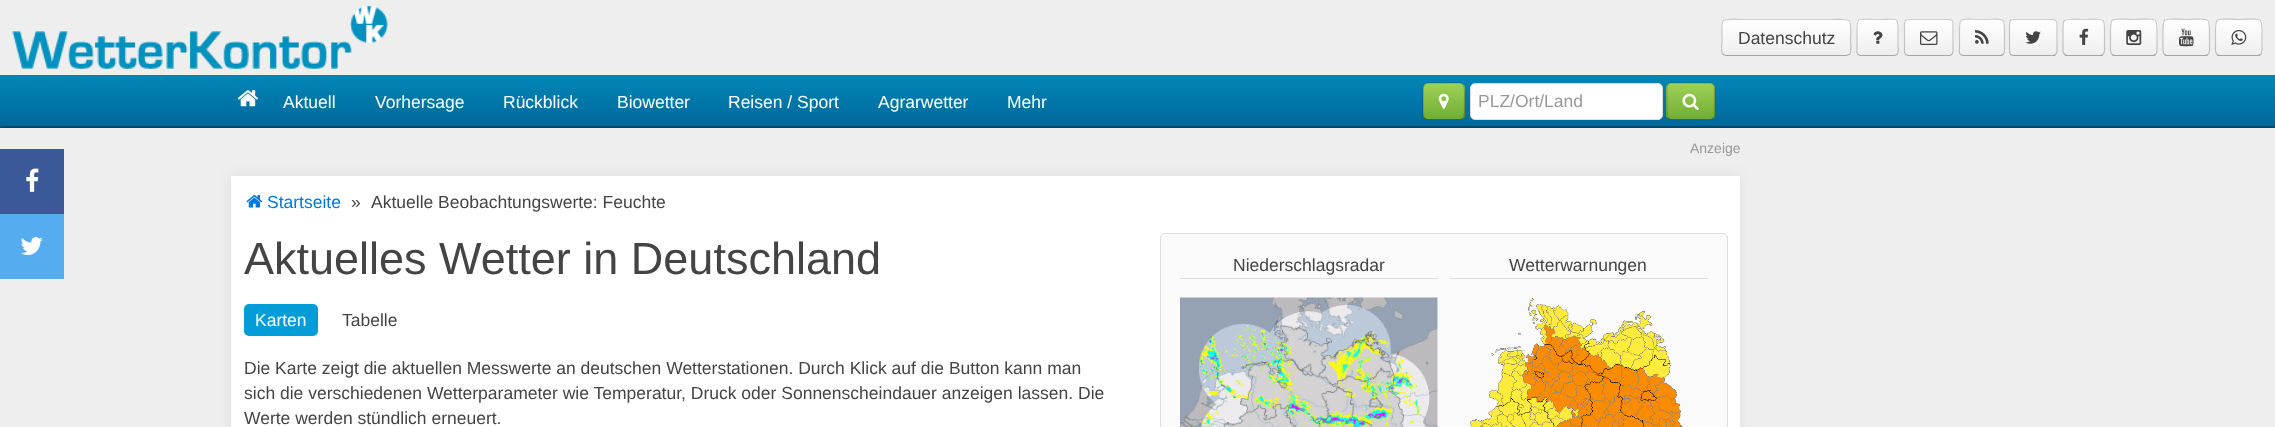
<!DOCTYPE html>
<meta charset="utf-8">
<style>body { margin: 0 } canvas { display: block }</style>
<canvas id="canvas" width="2275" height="427"></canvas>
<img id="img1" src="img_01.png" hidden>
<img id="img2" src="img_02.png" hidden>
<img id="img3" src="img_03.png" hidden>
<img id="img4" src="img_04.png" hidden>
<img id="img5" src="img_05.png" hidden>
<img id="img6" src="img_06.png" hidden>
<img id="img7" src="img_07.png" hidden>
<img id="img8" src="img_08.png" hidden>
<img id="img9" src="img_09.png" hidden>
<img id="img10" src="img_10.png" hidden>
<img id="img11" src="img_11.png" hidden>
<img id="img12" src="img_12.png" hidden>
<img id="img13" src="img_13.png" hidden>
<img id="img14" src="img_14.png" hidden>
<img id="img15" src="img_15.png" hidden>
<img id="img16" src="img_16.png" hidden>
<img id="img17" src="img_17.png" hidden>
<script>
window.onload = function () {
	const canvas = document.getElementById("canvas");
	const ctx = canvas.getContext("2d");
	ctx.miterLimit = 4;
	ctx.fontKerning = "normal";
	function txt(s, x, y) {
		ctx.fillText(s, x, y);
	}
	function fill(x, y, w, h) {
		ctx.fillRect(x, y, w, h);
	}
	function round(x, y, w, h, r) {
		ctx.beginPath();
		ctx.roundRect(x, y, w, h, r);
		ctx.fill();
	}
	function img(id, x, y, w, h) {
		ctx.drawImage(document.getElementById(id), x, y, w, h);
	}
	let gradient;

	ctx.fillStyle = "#EEEEEE";
	fill(0, 0, 2275, 427);
	img("img1", 12, 6, 376, 63);
	gradient = ctx.createLinearGradient(1786, 19, 1786, 56);
	gradient.addColorStop(0, "#FFFFFF");
	gradient.addColorStop(1, "#EEEEEE");
	ctx.fillStyle = gradient;
	round(1721, 19, 130, 37, 5);
	ctx.beginPath();
	ctx.moveTo(1849.5, 54.5);
	ctx.lineTo(1846, 55.5);
	ctx.lineTo(1726, 55.5);
	ctx.lineTo(1723, 54.5);
	ctx.strokeStyle = "rgba(0, 0, 0, 0.3)";
	ctx.lineWidth = 1.2;
	ctx.stroke();
	ctx.beginPath();
	ctx.moveTo(1723, 54.5);
	ctx.bezierCurveTo(1720.5, 51.5, 1722, 45, 1722, 42);
	ctx.bezierCurveTo(1722, 15, 1717.5, 19.5, 1746, 19.5);
	ctx.lineTo(1826, 19.5);
	ctx.bezierCurveTo(1855, 19.5, 1850.5, 15, 1850.5, 42);
	ctx.bezierCurveTo(1850.5, 45, 1852, 51.5, 1849.5, 54.5);
	ctx.strokeStyle = "rgba(0, 0, 0, 0.2)";
	ctx.stroke();
	gradient = ctx.createLinearGradient(1878, 19, 1878, 56);
	gradient.addColorStop(0, "#FFFFFF");
	gradient.addColorStop(1, "#EEEEEE");
	ctx.fillStyle = gradient;
	round(1856, 19, 43, 37, 5);
	ctx.beginPath();
	ctx.moveTo(1897, 54.5);
	ctx.bezierCurveTo(1896, 55, 1895, 55.5, 1894, 55.5);
	ctx.lineTo(1861, 55.5);
	ctx.bezierCurveTo(1860, 55.5, 1859, 55, 1858, 54.5);
	ctx.strokeStyle = "#A7A7A7";
	ctx.stroke();
	ctx.beginPath();
	ctx.moveTo(1858, 54.5);
	ctx.bezierCurveTo(1856, 52.5, 1857, 49, 1857, 46.5);
	ctx.lineTo(1857, 37.5);
	ctx.bezierCurveTo(1857, 15.5, 1854.5, 19.5, 1877.5, 19.5);
	ctx.bezierCurveTo(1900.5, 19.5, 1898, 15.5, 1898, 37.5);
	ctx.lineTo(1898, 46.5);
	ctx.bezierCurveTo(1898, 49, 1899, 52.5, 1897, 54.5);
	ctx.strokeStyle = "rgba(0, 0, 0, 0.2)";
	ctx.stroke();
	img("img2", 1873, 31, 10, 13);
	gradient = ctx.createLinearGradient(1929, 19, 1929, 56);
	gradient.addColorStop(0, "#FFFFFF");
	gradient.addColorStop(1, "#EEEEEE");
	ctx.fillStyle = gradient;
	round(1904, 19, 50, 37, 5);
	ctx.beginPath();
	ctx.moveTo(1952, 54.5);
	ctx.bezierCurveTo(1951, 55, 1950, 55.5, 1949, 55.5);
	ctx.lineTo(1909, 55.5);
	ctx.bezierCurveTo(1907.5, 55.5, 1906.5, 55, 1905.5, 54.5);
	ctx.strokeStyle = "#A7A7A7";
	ctx.stroke();
	ctx.beginPath();
	ctx.moveTo(1905.5, 54.5);
	ctx.bezierCurveTo(1905, 53.5, 1904.5, 52.5, 1904.5, 51);
	ctx.lineTo(1904.5, 24);
	ctx.bezierCurveTo(1904.5, 22.5, 1905, 21.5, 1905.5, 20.5);
	ctx.bezierCurveTo(1906.5, 20, 1907.5, 19.5, 1909, 19.5);
	ctx.lineTo(1949, 19.5);
	ctx.bezierCurveTo(1950, 19.5, 1951, 20, 1952, 20.5);
	ctx.bezierCurveTo(1952.5, 21.5, 1953, 22.5, 1953, 24);
	ctx.lineTo(1953, 51);
	ctx.bezierCurveTo(1953, 52.5, 1952.5, 53.5, 1952, 54.5);
	ctx.strokeStyle = "rgba(0, 0, 0, 0.2)";
	ctx.stroke();
	img("img3", 1920, 31, 18, 14);
	gradient = ctx.createLinearGradient(1982, 19, 1982, 56);
	gradient.addColorStop(0, "#FFFFFF");
	gradient.addColorStop(1, "#EEEEEE");
	ctx.fillStyle = gradient;
	round(1959, 19, 46, 37, 5);
	ctx.beginPath();
	ctx.moveTo(2003, 54.5);
	ctx.bezierCurveTo(2002.5, 55, 2001, 55.5, 2000, 55.5);
	ctx.lineTo(1964, 55.5);
	ctx.bezierCurveTo(1962.5, 55.5, 1961.5, 55, 1960.5, 54.5);
	ctx.strokeStyle = "#A7A7A7";
	ctx.stroke();
	ctx.beginPath();
	ctx.moveTo(1960.5, 54.5);
	ctx.bezierCurveTo(1958.5, 52.5, 1959.5, 49, 1959.5, 46.5);
	ctx.lineTo(1959.5, 37.5);
	ctx.bezierCurveTo(1959.5, 15, 1957.5, 19.5, 1982, 19.5);
	ctx.bezierCurveTo(2006.5, 19.5, 2004.5, 15, 2004.5, 37.5);
	ctx.lineTo(2004.5, 46.5);
	ctx.bezierCurveTo(2004.5, 49, 2005, 52.5, 2003, 54.5);
	ctx.strokeStyle = "rgba(0, 0, 0, 0.2)";
	ctx.stroke();
	img("img4", 1975, 30, 14, 14);
	gradient = ctx.createLinearGradient(2033, 19, 2033, 56);
	gradient.addColorStop(0, "#FFFFFF");
	gradient.addColorStop(1, "#EEEEEE");
	ctx.fillStyle = gradient;
	round(2009, 19, 49, 37, 5);
	ctx.beginPath();
	ctx.moveTo(2055.5, 54.5);
	ctx.bezierCurveTo(2055, 55, 2053.5, 55.5, 2052.5, 55.5);
	ctx.lineTo(2014, 55.5);
	ctx.bezierCurveTo(2012.5, 55.5, 2011.5, 55, 2010.5, 54.5);
	ctx.strokeStyle = "#A7A7A7";
	ctx.stroke();
	ctx.beginPath();
	ctx.moveTo(2010.5, 54.5);
	ctx.bezierCurveTo(2010, 53.5, 2009.5, 52.5, 2009.5, 51);
	ctx.lineTo(2009.5, 24);
	ctx.bezierCurveTo(2009.5, 22.5, 2010, 21.5, 2010.5, 20.5);
	ctx.bezierCurveTo(2011.5, 20, 2012.5, 19.5, 2014, 19.5);
	ctx.lineTo(2052.5, 19.5);
	ctx.bezierCurveTo(2053.5, 19.5, 2055, 20, 2055.5, 20.5);
	ctx.bezierCurveTo(2056.5, 21.5, 2057, 22.5, 2057, 24);
	ctx.lineTo(2057, 51);
	ctx.bezierCurveTo(2057, 52.5, 2056.5, 53.5, 2055.5, 54.5);
	ctx.strokeStyle = "rgba(0, 0, 0, 0.2)";
	ctx.stroke();
	img("img5", 2025, 31, 16, 13);
	gradient = ctx.createLinearGradient(2084, 19, 2084, 56);
	gradient.addColorStop(0, "#FFFFFF");
	gradient.addColorStop(1, "#EEEEEE");
	ctx.fillStyle = gradient;
	round(2063, 19, 42, 37, 5);
	ctx.beginPath();
	ctx.moveTo(2103, 54.5);
	ctx.bezierCurveTo(2102.5, 55, 2101, 55.5, 2100, 55.5);
	ctx.lineTo(2067.5, 55.5);
	ctx.bezierCurveTo(2066.5, 55.5, 2065, 55, 2064.5, 54.5);
	ctx.strokeStyle = "#A7A7A7";
	ctx.stroke();
	ctx.beginPath();
	ctx.moveTo(2064.5, 54.5);
	ctx.bezierCurveTo(2062.5, 52.5, 2063, 49, 2063, 46.5);
	ctx.lineTo(2063, 37.5);
	ctx.bezierCurveTo(2063, 15.5, 2061, 19.5, 2084, 19.5);
	ctx.bezierCurveTo(2106.5, 19.5, 2104.5, 15.5, 2104.5, 37.5);
	ctx.lineTo(2104.5, 46.5);
	ctx.bezierCurveTo(2104.5, 49, 2105, 52.5, 2103, 54.5);
	ctx.strokeStyle = "rgba(0, 0, 0, 0.2)";
	ctx.stroke();
	img("img6", 2079, 28, 10, 17);
	gradient = ctx.createLinearGradient(2134, 19, 2134, 56);
	gradient.addColorStop(0, "#FFFFFF");
	gradient.addColorStop(1, "#EEEEEE");
	ctx.fillStyle = gradient;
	round(2110, 19, 48, 37, 5);
	ctx.beginPath();
	ctx.moveTo(2155.5, 54.5);
	ctx.bezierCurveTo(2155, 55, 2153.5, 55.5, 2152.5, 55.5);
	ctx.lineTo(2115, 55.5);
	ctx.bezierCurveTo(2114, 55.5, 2112.5, 55, 2112, 54.5);
	ctx.strokeStyle = "#A7A7A7";
	ctx.stroke();
	ctx.beginPath();
	ctx.moveTo(2112, 54.5);
	ctx.bezierCurveTo(2110, 52.5, 2110.5, 49, 2110.5, 46.5);
	ctx.lineTo(2110.5, 37.5);
	ctx.bezierCurveTo(2110.5, 14.5, 2109, 19.5, 2134, 19.5);
	ctx.bezierCurveTo(2158.5, 19.5, 2157, 14.5, 2157, 37.5);
	ctx.lineTo(2157, 46.5);
	ctx.bezierCurveTo(2157, 49, 2157.5, 52.5, 2155.5, 54.5);
	ctx.strokeStyle = "rgba(0, 0, 0, 0.2)";
	ctx.stroke();
	img("img7", 2126, 30, 16, 15);
	gradient = ctx.createLinearGradient(2186, 19, 2186, 56);
	gradient.addColorStop(0, "#FFFFFF");
	gradient.addColorStop(1, "#EEEEEE");
	ctx.fillStyle = gradient;
	round(2163, 19, 47, 37, 5);
	ctx.beginPath();
	ctx.moveTo(2208, 54.5);
	ctx.bezierCurveTo(2207.5, 55, 2206, 55.5, 2205, 55.5);
	ctx.lineTo(2167.5, 55.5);
	ctx.bezierCurveTo(2166.5, 55.5, 2165, 55, 2164.5, 54.5);
	ctx.strokeStyle = "#A7A7A7";
	ctx.stroke();
	ctx.beginPath();
	ctx.moveTo(2164.5, 54.5);
	ctx.bezierCurveTo(2162.5, 52.5, 2163, 49, 2163, 46.5);
	ctx.lineTo(2163, 37.5);
	ctx.bezierCurveTo(2163, 14.5, 2161.5, 19.5, 2186, 19.5);
	ctx.bezierCurveTo(2211, 19.5, 2209.5, 14.5, 2209.5, 37.5);
	ctx.lineTo(2209.5, 46.5);
	ctx.bezierCurveTo(2209.5, 49, 2210, 52.5, 2208, 54.5);
	ctx.strokeStyle = "rgba(0, 0, 0, 0.2)";
	ctx.stroke();
	img("img8", 2179, 28, 15, 19);
	gradient = ctx.createLinearGradient(2239, 19, 2239, 56);
	gradient.addColorStop(0, "#FFFFFF");
	gradient.addColorStop(1, "#EEEEEE");
	ctx.fillStyle = gradient;
	round(2215, 19, 48, 37, 5);
	ctx.beginPath();
	ctx.moveTo(2260.5, 54.5);
	ctx.bezierCurveTo(2260, 55, 2258.5, 55.5, 2257.5, 55.5);
	ctx.lineTo(2220, 55.5);
	ctx.bezierCurveTo(2219, 55.5, 2217.5, 55, 2217, 54.5);
	ctx.strokeStyle = "#A7A7A7";
	ctx.stroke();
	ctx.beginPath();
	ctx.moveTo(2217, 54.5);
	ctx.bezierCurveTo(2215, 52.5, 2215.5, 49, 2215.5, 46.5);
	ctx.lineTo(2215.5, 37.5);
	ctx.bezierCurveTo(2215.5, 14.5, 2214, 19.5, 2239, 19.5);
	ctx.bezierCurveTo(2263.5, 19.5, 2262, 14.5, 2262, 37.5);
	ctx.lineTo(2262, 46.5);
	ctx.bezierCurveTo(2262, 49, 2262.5, 52.5, 2260.5, 54.5);
	ctx.strokeStyle = "rgba(0, 0, 0, 0.2)";
	ctx.stroke();
	img("img9", 2231, 29, 16, 16);
	gradient = ctx.createLinearGradient(1138, 75, 1138, 128);
	gradient.addColorStop(0, "#0087B7");
	gradient.addColorStop(1, "#006699");
	ctx.fillStyle = gradient;
	fill(0, 75, 2275, 53);
	ctx.fillStyle = "#00486B";
	ctx.beginPath();
	ctx.moveTo(2275, 128);
	ctx.lineTo(0, 128);
	ctx.lineTo(1, 126);
	ctx.lineTo(2274, 126);
	ctx.closePath();
	ctx.fill();
	img("img10", 237, 90, 21, 17);
	gradient = ctx.createLinearGradient(1444, 83, 1444, 120);
	gradient.addColorStop(0, "#9FD256");
	gradient.addColorStop(1, "#6FAC34");
	ctx.fillStyle = gradient;
	round(1423, 83, 42, 37, 5);
	ctx.beginPath();
	ctx.moveTo(1463, 118);
	ctx.bezierCurveTo(1462.5, 119, 1461, 119.5, 1460, 119.5);
	ctx.lineTo(1427.5, 119.5);
	ctx.bezierCurveTo(1426.5, 119.5, 1425, 119, 1424.5, 118);
	ctx.strokeStyle = "rgba(0, 0, 0, 0.4)";
	ctx.stroke();
	ctx.beginPath();
	ctx.moveTo(1424.5, 118);
	ctx.bezierCurveTo(1422.5, 116, 1423, 113, 1423, 110.5);
	ctx.lineTo(1423, 101);
	ctx.bezierCurveTo(1423, 79.5, 1421, 83, 1444, 83);
	ctx.bezierCurveTo(1466.5, 83, 1464.5, 79.5, 1464.5, 101);
	ctx.lineTo(1464.5, 110.5);
	ctx.bezierCurveTo(1464.5, 113, 1465, 116, 1463, 118);
	ctx.strokeStyle = "rgba(0, 0, 0, 0.2)";
	ctx.stroke();
	img("img11", 1438, 93, 11, 16);
	ctx.fillStyle = "#FFFFFF";
	ctx.beginPath();
	ctx.roundRect(1470.5, 83.5, 192, 36, 4.5);
	ctx.fill();
	ctx.strokeStyle = "#DDDDDD";
	ctx.lineWidth = 1;
	ctx.stroke();
	gradient = ctx.createLinearGradient(1691, 83, 1691, 120);
	gradient.addColorStop(0, "#9FD256");
	gradient.addColorStop(1, "#6FAC34");
	ctx.fillStyle = gradient;
	round(1666, 83, 49, 37, 5);
	ctx.beginPath();
	ctx.moveTo(1713, 118);
	ctx.bezierCurveTo(1712.5, 119, 1711, 119.5, 1710, 119.5);
	ctx.lineTo(1671, 119.5);
	ctx.bezierCurveTo(1670, 119.5, 1669, 119, 1668, 118);
	ctx.strokeStyle = "rgba(0, 0, 0, 0.4)";
	ctx.lineWidth = 1.2;
	ctx.stroke();
	ctx.beginPath();
	ctx.moveTo(1668, 118);
	ctx.bezierCurveTo(1667.5, 117.5, 1667, 116, 1667, 115);
	ctx.lineTo(1667, 87.5);
	ctx.bezierCurveTo(1667, 86.5, 1667.5, 85, 1668, 84.5);
	ctx.bezierCurveTo(1669, 83.5, 1670, 83, 1671, 83);
	ctx.lineTo(1710, 83);
	ctx.bezierCurveTo(1711, 83, 1712.5, 83.5, 1713, 84.5);
	ctx.bezierCurveTo(1714, 85, 1714.5, 86.5, 1714.5, 87.5);
	ctx.lineTo(1714.5, 115);
	ctx.bezierCurveTo(1714.5, 116, 1714, 117.5, 1713, 118);
	ctx.strokeStyle = "rgba(0, 0, 0, 0.2)";
	ctx.stroke();
	img("img12", 1682, 93, 17, 17);
	ctx.fillStyle = "#3B5998";
	fill(0, 149, 64, 65);
	img("img13", 26, 168, 13, 24);
	ctx.fillStyle = "#55ACEE";
	fill(0, 214, 64, 65);
	img("img14", 20, 237, 23, 18);
	ctx.fillStyle = "#DDDDDD";
	ctx.filter = "blur(6px)";
	ctx.beginPath();
	ctx.rect(231, 176, 1509, 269);
	ctx.fill();
	ctx.filter = "none";
	ctx.fillStyle = "#FFFFFF";
	fill(231, 176, 1509, 251);
	img("img15", 246, 195, 17, 13);
	ctx.fillStyle = "#009DD8";
	round(244, 304, 74, 32, 5);
	ctx.fillStyle = "#FAFAFA";
	ctx.beginPath();
	ctx.roundRect(1160.5, 233.5, 567, 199, 4.5);
	ctx.fill();
	ctx.strokeStyle = "#DDDDDD";
	ctx.lineWidth = 1;
	ctx.stroke();
	ctx.fillStyle = "#DDDDDD";
	fill(1180, 278, 258, 1);
	img("img16", 1180, 297, 258, 130);
	fill(1450, 278, 258, 1);
	img("img17", 1470, 298, 213, 129);
	ctx.font = "17.5px Liberation Sans";
	ctx.fillStyle = "#444444";
	txt("Datenschutz", 1738, 44);
	ctx.fillStyle = "#FFFFFF";
	txt("Aktuell", 283, 108);
	txt("Vorhersage", 375, 108);
	txt("Rückblick", 503, 108);
	txt("Biowetter", 617, 108);
	txt("Reisen / Sport", 728, 108);
	txt("Agrarwetter", 878, 108);
	txt("Mehr", 1007, 108);
	ctx.fillStyle = "#999999";
	txt("PLZ/Ort/Land", 1478, 107);
	ctx.font = "14px Liberation Sans";
	txt("Anzeige", 1690, 153);
	ctx.font = "17.5px Liberation Sans";
	ctx.fillStyle = "#0077DD";
	txt("Startseite", 267, 208);
	ctx.fillStyle = "#444444";
	txt("»", 351, 208);
	txt("Aktuelle Beobachtungswerte: Feuchte", 371, 208);
	ctx.font = "45px Liberation Sans";
	txt("Aktuelles Wetter in Deutschland", 244, 274);
	ctx.font = "17.5px Liberation Sans";
	ctx.fillStyle = "#FFFFFF";
	txt("Karten", 255, 326);
	ctx.fillStyle = "#444444";
	txt("Tabelle", 342, 326);
	txt("Die Karte zeigt die aktuellen Messwerte an deutschen Wetterstationen. Durch Klick auf die Button kann man", 244, 374);
	txt("sich die verschiedenen Wetterparameter wie Temperatur, Druck oder Sonnenscheindauer anzeigen lassen. Die", 244, 399);
	txt("Werte werden stündlich erneuert.", 244, 424);
	txt("Niederschlagsradar", 1233, 271);
	txt("Wetterwarnungen", 1509, 271);
};
</script>
